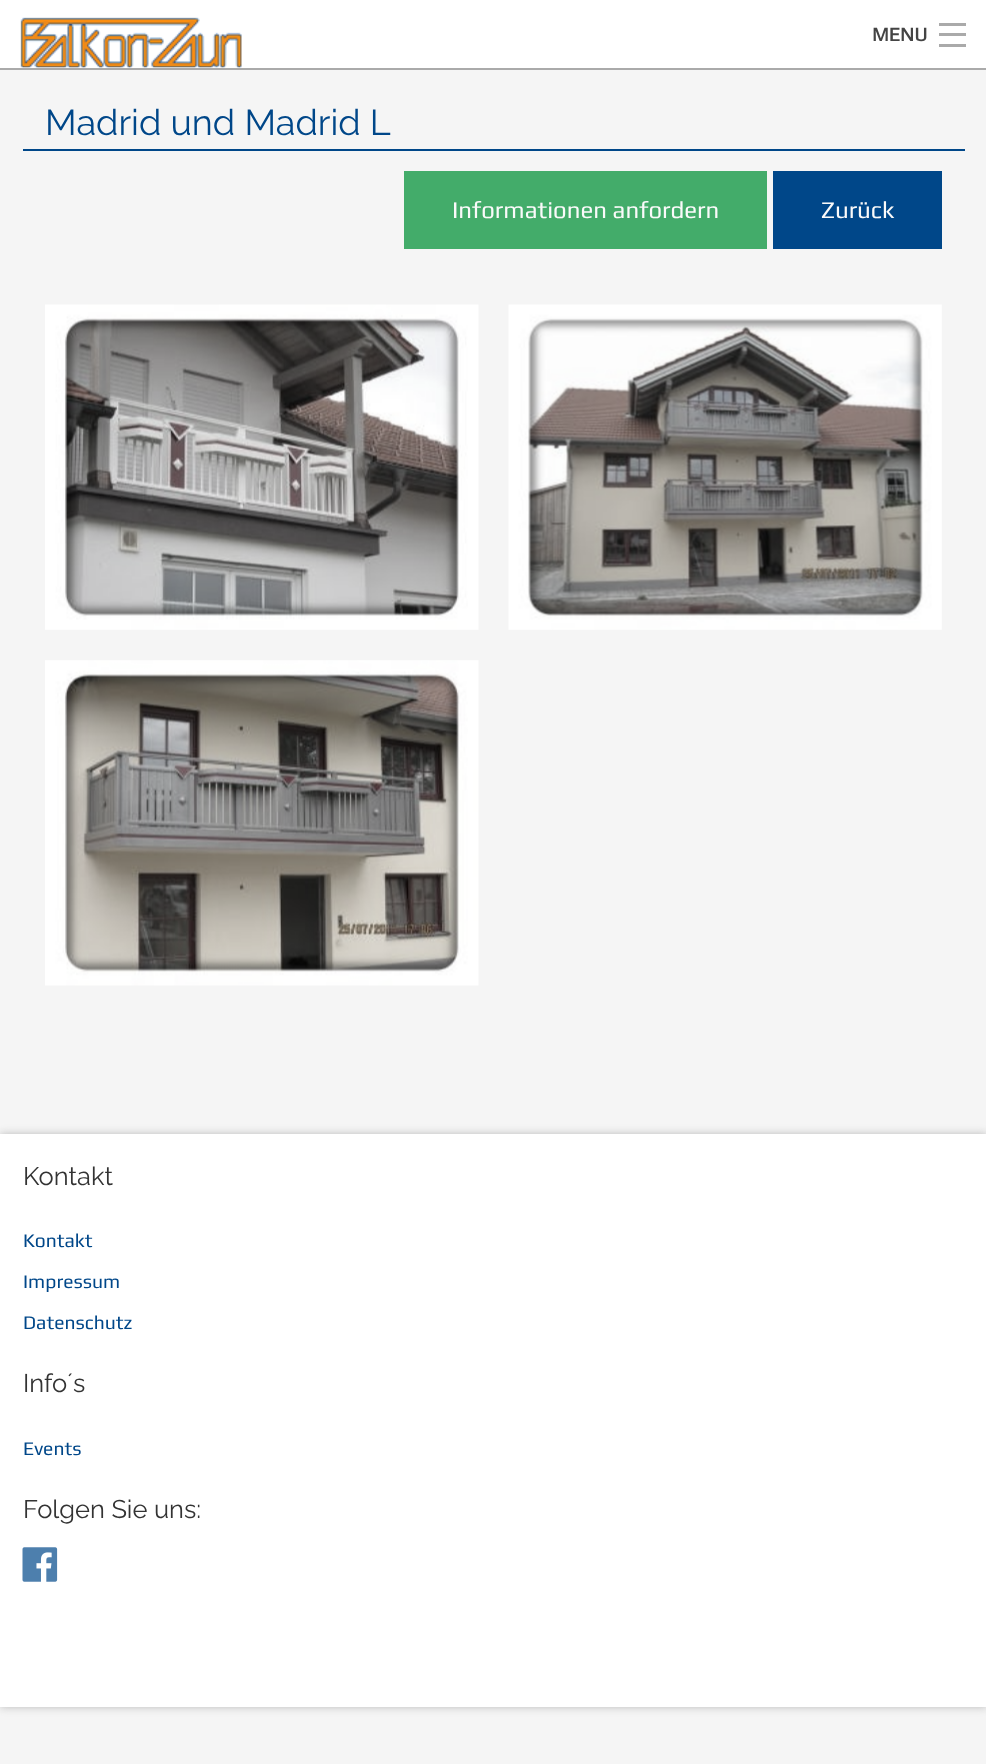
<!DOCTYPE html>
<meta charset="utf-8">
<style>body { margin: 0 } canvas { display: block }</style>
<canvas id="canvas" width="986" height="1764"></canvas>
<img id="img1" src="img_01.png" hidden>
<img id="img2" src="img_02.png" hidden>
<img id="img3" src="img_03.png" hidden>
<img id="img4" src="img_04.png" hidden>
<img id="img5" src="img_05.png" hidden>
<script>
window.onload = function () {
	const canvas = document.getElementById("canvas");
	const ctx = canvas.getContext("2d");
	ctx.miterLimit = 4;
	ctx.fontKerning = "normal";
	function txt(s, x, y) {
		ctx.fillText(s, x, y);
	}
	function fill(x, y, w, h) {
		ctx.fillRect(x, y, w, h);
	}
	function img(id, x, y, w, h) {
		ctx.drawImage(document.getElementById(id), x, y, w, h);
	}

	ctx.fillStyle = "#F5F5F5";
	fill(0, 0, 986, 1764);
	ctx.fillStyle = "#AAAAAA";
	fill(0, 68, 986, 2);
	ctx.fillStyle = "#FFFFFF";
	fill(0, 0, 986, 68);
	img("img1", 20, 17, 222, 51);
	ctx.fillStyle = "#AAAAAA";
	fill(939, 44, 27, 3);
	fill(939, 33, 27, 3);
	fill(939, 23, 27, 3);
	ctx.fillStyle = "#004789";
	fill(23, 149, 942, 2);
	ctx.fillStyle = "#43AC6A";
	fill(404, 171, 363, 78);
	ctx.fillStyle = "#004789";
	fill(773, 171, 169, 78);
	img("img2", 45, 304, 434, 326);
	img("img3", 508, 304, 434, 326);
	img("img4", 45, 660, 434, 326);
	ctx.fillStyle = "#BABABA";
	ctx.filter = "blur(4px)";
	ctx.beginPath();
	ctx.rect(0, 1134, 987, 573);
	ctx.fill();
	ctx.filter = "none";
	ctx.fillStyle = "#FFFFFF";
	fill(0, 1134, 986, 573);
	img("img5", 22, 1547, 36, 35);
	ctx.font = "bold 19.5px Play";
	ctx.fillStyle = "#444444";
	txt("MENU", 872, 41);
	ctx.font = "100 36px Raleway";
	ctx.fillStyle = "#004789";
	txt("Madrid und Madrid L", 45, 135);
	ctx.font = "24px Play";
	ctx.fillStyle = "#FAFAFA";
	txt("Informationen anfordern", 452, 218);
	txt("Zurück", 821, 218);
	ctx.font = "100 25.5px Raleway";
	ctx.fillStyle = "#333333";
	txt("Kontakt", 23, 1185);
	ctx.font = "19.25px Play";
	ctx.fillStyle = "#004789";
	txt("Kontakt", 23, 1247);
	txt("Impressum", 23, 1288);
	txt("Datenschutz", 23, 1329);
	ctx.font = "100 25.5px Raleway";
	ctx.fillStyle = "#333333";
	txt("Info´s", 23, 1392);
	ctx.font = "19.25px Play";
	ctx.fillStyle = "#004789";
	txt("Events", 23, 1455);
	ctx.font = "100 25.5px Raleway";
	ctx.fillStyle = "#333333";
	txt("Folgen Sie uns:", 23, 1518);
};
</script>
